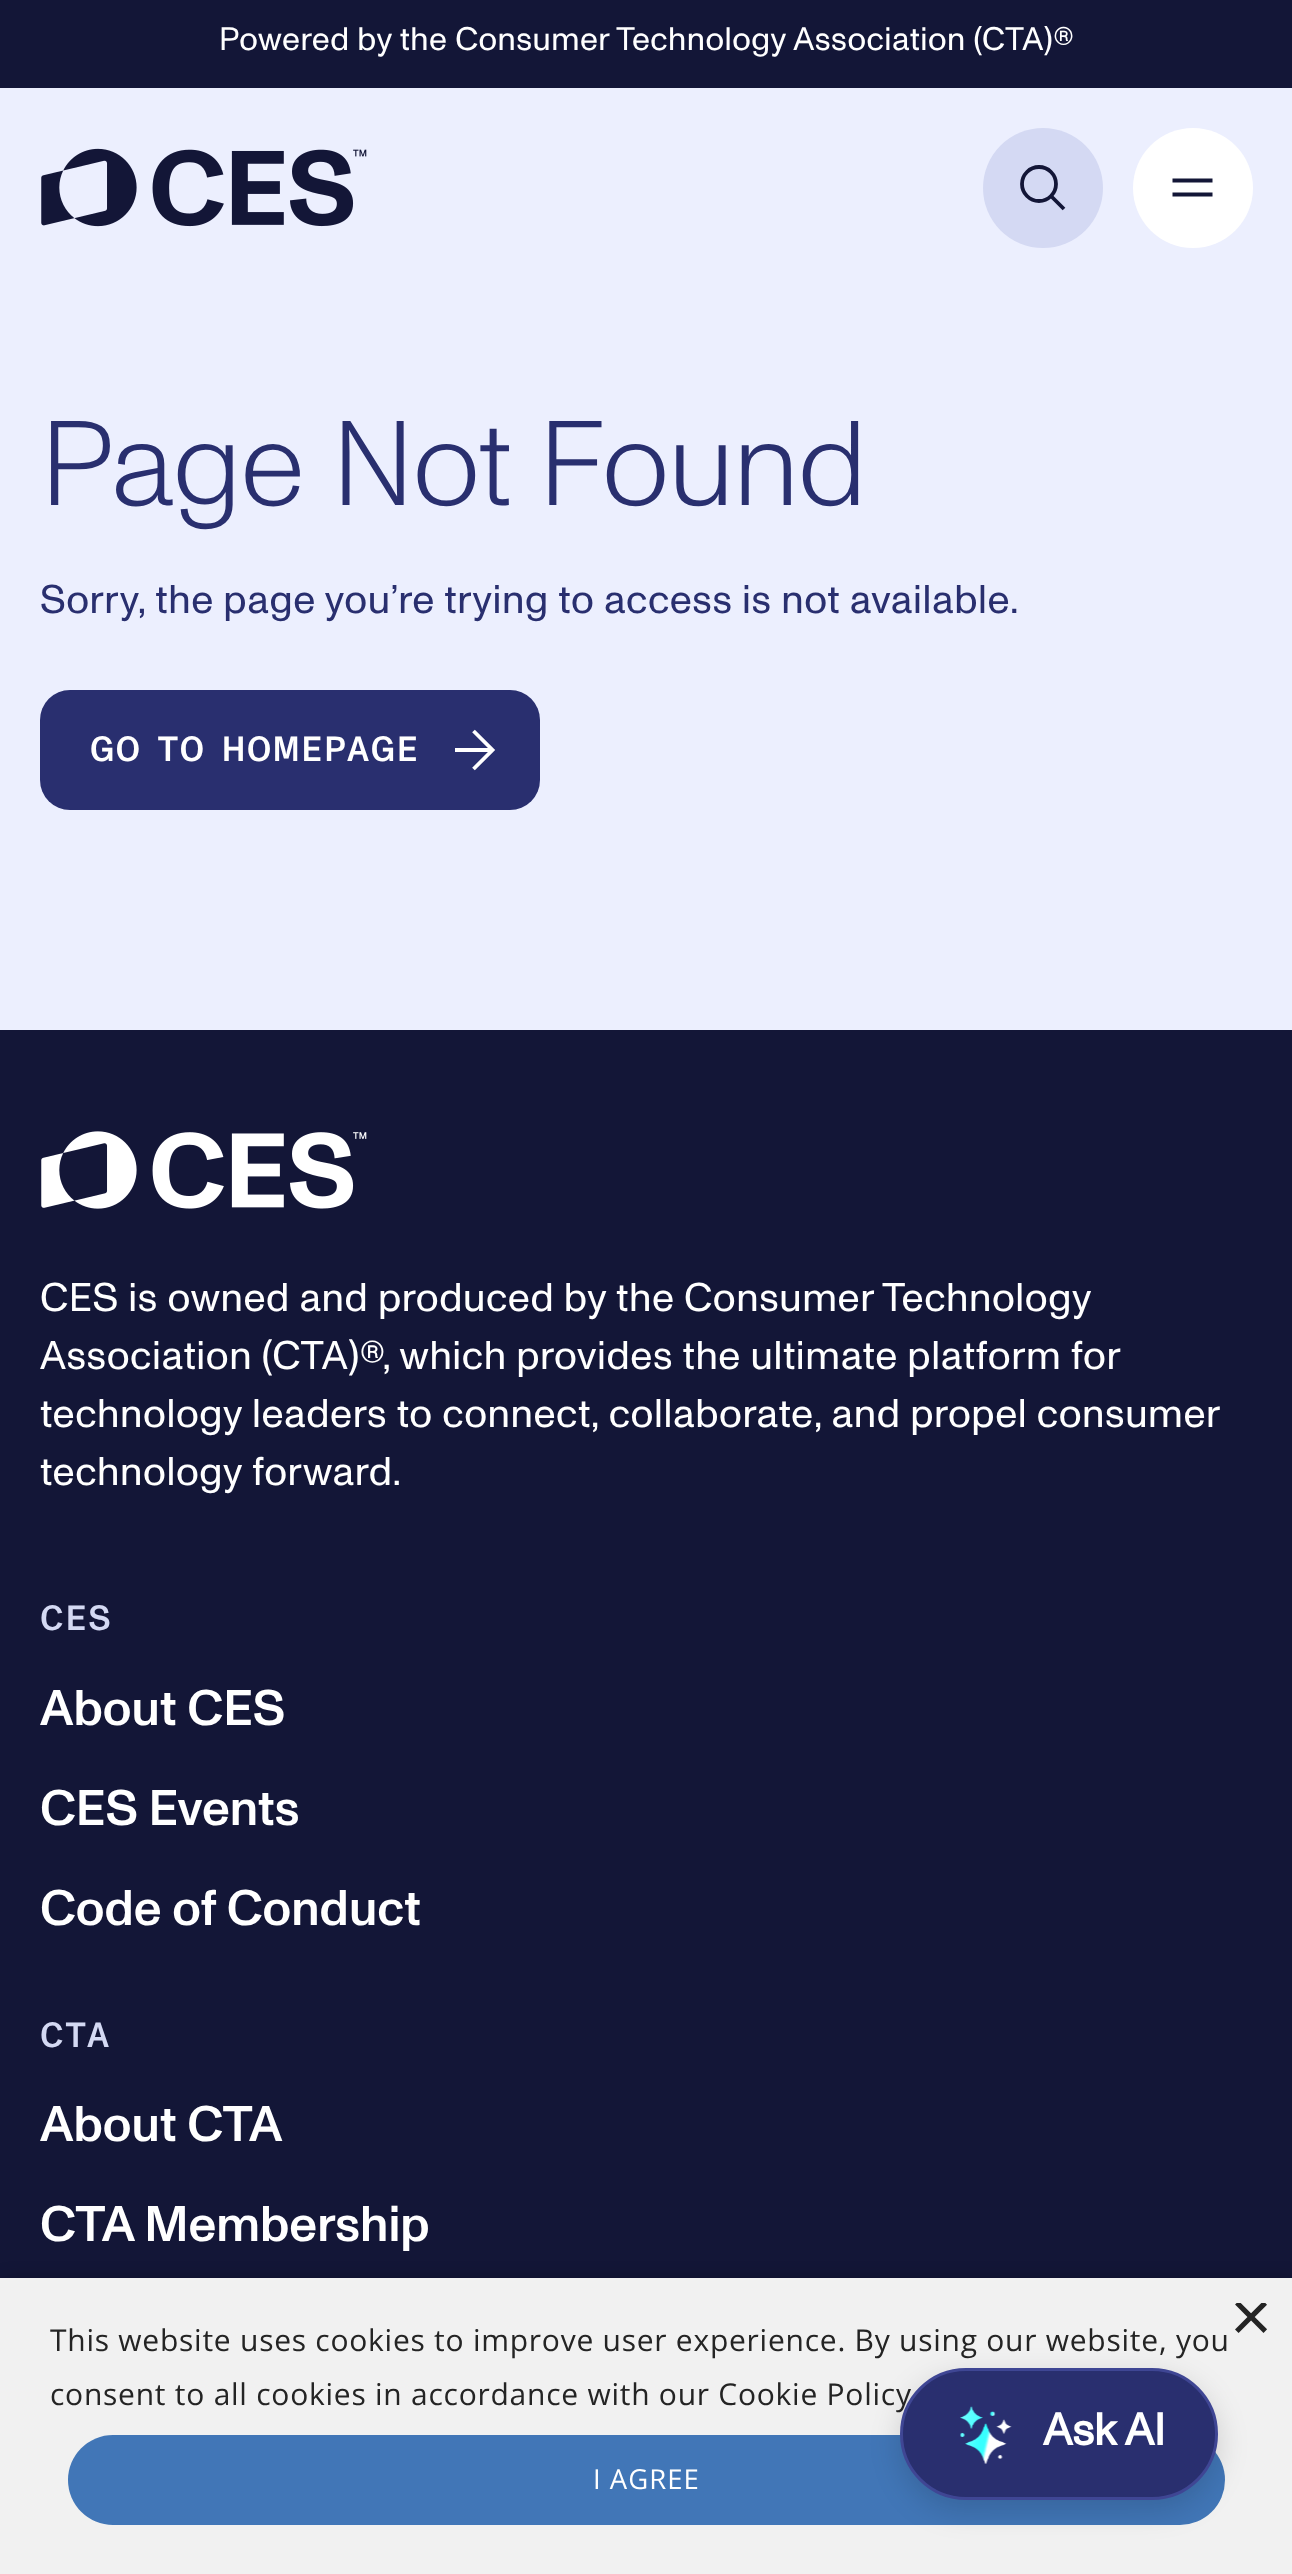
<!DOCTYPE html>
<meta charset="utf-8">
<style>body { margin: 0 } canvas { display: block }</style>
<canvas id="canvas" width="1292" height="2574"></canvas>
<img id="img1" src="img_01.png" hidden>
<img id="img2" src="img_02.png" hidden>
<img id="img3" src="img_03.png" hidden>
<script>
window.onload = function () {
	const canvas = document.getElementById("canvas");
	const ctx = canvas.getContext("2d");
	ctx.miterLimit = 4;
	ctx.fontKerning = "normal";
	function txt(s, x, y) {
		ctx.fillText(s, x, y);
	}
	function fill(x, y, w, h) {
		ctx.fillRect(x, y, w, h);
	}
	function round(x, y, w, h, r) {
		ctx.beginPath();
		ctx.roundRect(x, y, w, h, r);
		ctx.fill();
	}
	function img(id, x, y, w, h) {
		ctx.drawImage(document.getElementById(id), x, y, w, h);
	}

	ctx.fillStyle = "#ECEFFE";
	fill(0, 0, 1292, 2574);
	ctx.fillStyle = "#131637";
	fill(0, 0, 1292, 88);
	img("img1", 41, 148, 326, 79);
	ctx.fillStyle = "#D4D9F3";
	ctx.beginPath();
	ctx.arc(1043, 188, 60, 0, Math.PI * 2);
	ctx.fill();
	ctx.beginPath();
	ctx.arc(1039, 184, 17, 0, Math.PI * 2);
	ctx.strokeStyle = "#131637";
	ctx.lineWidth = 3.8;
	ctx.stroke();
	ctx.beginPath();
	ctx.moveTo(1064, 209);
	ctx.lineTo(1051, 196);
	ctx.stroke();
	ctx.fillStyle = "#FFFFFF";
	ctx.beginPath();
	ctx.arc(1193, 188, 60, 0, Math.PI * 2);
	ctx.fill();
	ctx.beginPath();
	ctx.moveTo(1172.5, 180.5);
	ctx.lineTo(1212.5, 180.5);
	ctx.moveTo(1172.5, 194.5);
	ctx.lineTo(1212.5, 194.5);
	ctx.stroke();
	ctx.fillStyle = "#292F6F";
	round(40, 690, 500, 120, 30);
	ctx.beginPath();
	ctx.moveTo(473.5, 731);
	ctx.lineTo(492.5, 750);
	ctx.lineTo(473.5, 769);
	ctx.moveTo(492.5, 750);
	ctx.lineTo(455, 750);
	ctx.strokeStyle = "#FFFFFF";
	ctx.stroke();
	ctx.fillStyle = "#131637";
	fill(0, 1030, 1292, 1248);
	img("img2", 41, 1131, 326, 78);
	ctx.fillStyle = "rgba(0, 0, 0, 0.35)";
	ctx.filter = "blur(10px)";
	ctx.beginPath();
	ctx.rect(3, 2283, 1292, 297);
	ctx.fill();
	ctx.filter = "none";
	ctx.fillStyle = "#F1F1F1";
	fill(0, 2278, 1292, 296);
	ctx.fillStyle = "#4176B7";
	round(68, 2435, 1157, 90, 45);
	ctx.fillStyle = "rgba(0, 0, 0, 0.15)";
	ctx.filter = "blur(15px)";
	ctx.beginPath();
	ctx.roundRect(900, 2378, 318, 132, 66);
	ctx.fill();
	ctx.filter = "none";
	ctx.letterSpacing = "0.5px";
	ctx.font = "32.5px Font";
	ctx.fillStyle = "#FFFFFF";
	txt("Powered by the Consumer Technology Association (CTA)®", 219, 50);
	ctx.letterSpacing = "-1.25px";
	ctx.font = "300 120px Font";
	ctx.fillStyle = "#292F6F";
	txt("Page Not Found", 40, 505);
	ctx.letterSpacing = "0.6px";
	ctx.font = "40px Font";
	txt("Sorry, the page you’re trying to access is not available.", 40, 613);
	ctx.letterSpacing = "1.75px";
	ctx.font = "500 35px Font";
	ctx.fillStyle = "#FFFFFF";
	txt("GO TO HOMEPAGE", 90, 761);
	ctx.letterSpacing = "0.6px";
	ctx.font = "40px Font";
	txt("CES is owned and produced by the Consumer Technology", 40, 1311);
	txt("Association (CTA)®, which provides the ultimate platform for", 40, 1369);
	txt("technology leaders to connect, collaborate, and propel consumer", 40, 1427);
	txt("technology forward.", 40, 1485);
	ctx.letterSpacing = "1.75px";
	ctx.font = "500 35px Font";
	ctx.fillStyle = "#D4D9F3";
	txt("CES", 40, 1630);
	ctx.letterSpacing = "0px";
	ctx.font = "500 50px 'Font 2'";
	ctx.fillStyle = "#FFFFFF";
	txt("About CES", 40, 1725);
	txt("CES Events", 40, 1825);
	txt("Code of Conduct", 40, 1925);
	ctx.letterSpacing = "1.75px";
	ctx.font = "500 35px Font";
	ctx.fillStyle = "#D4D9F3";
	txt("CTA", 40, 2047);
	ctx.letterSpacing = "0px";
	ctx.font = "500 50px 'Font 2'";
	ctx.fillStyle = "#FFFFFF";
	txt("About CTA", 40, 2141);
	txt("CTA Membership", 40, 2241);
	ctx.save();
	ctx.beginPath();
	ctx.rect(1230, 2303, 38, 37);
	ctx.clip();
	ctx.font = "72px Liberation Sans";
	ctx.fillStyle = "#242424";
	txt("×", 1230, 2341);
	ctx.restore();
	ctx.letterSpacing = "0.75px";
	ctx.font = "30px Open Sans";
	ctx.fillStyle = "#242424";
	txt("This website uses cookies to improve user experience. By using our website, you", 50, 2351);
	txt("consent to all cookies in accordance with our Cookie Policy", 50, 2405);
	ctx.letterSpacing = "1px";
	ctx.font = "27.5px Open Sans";
	ctx.fillStyle = "#FFFFFF";
	txt("I AGREE", 593, 2489);
	ctx.fillStyle = "#292F6F";
	ctx.beginPath();
	ctx.roundRect(901.5, 2369.5, 315, 129, 64.5);
	ctx.fill();
	ctx.strokeStyle = "#3F4694";
	ctx.lineWidth = 3;
	ctx.stroke();
	img("img3", 960, 2406, 52, 58);
	ctx.letterSpacing = "0px";
	ctx.font = "bold 45px Font";
	ctx.fillStyle = "#FFFFFF";
	txt("Ask AI", 1043, 2445);
};
</script>
